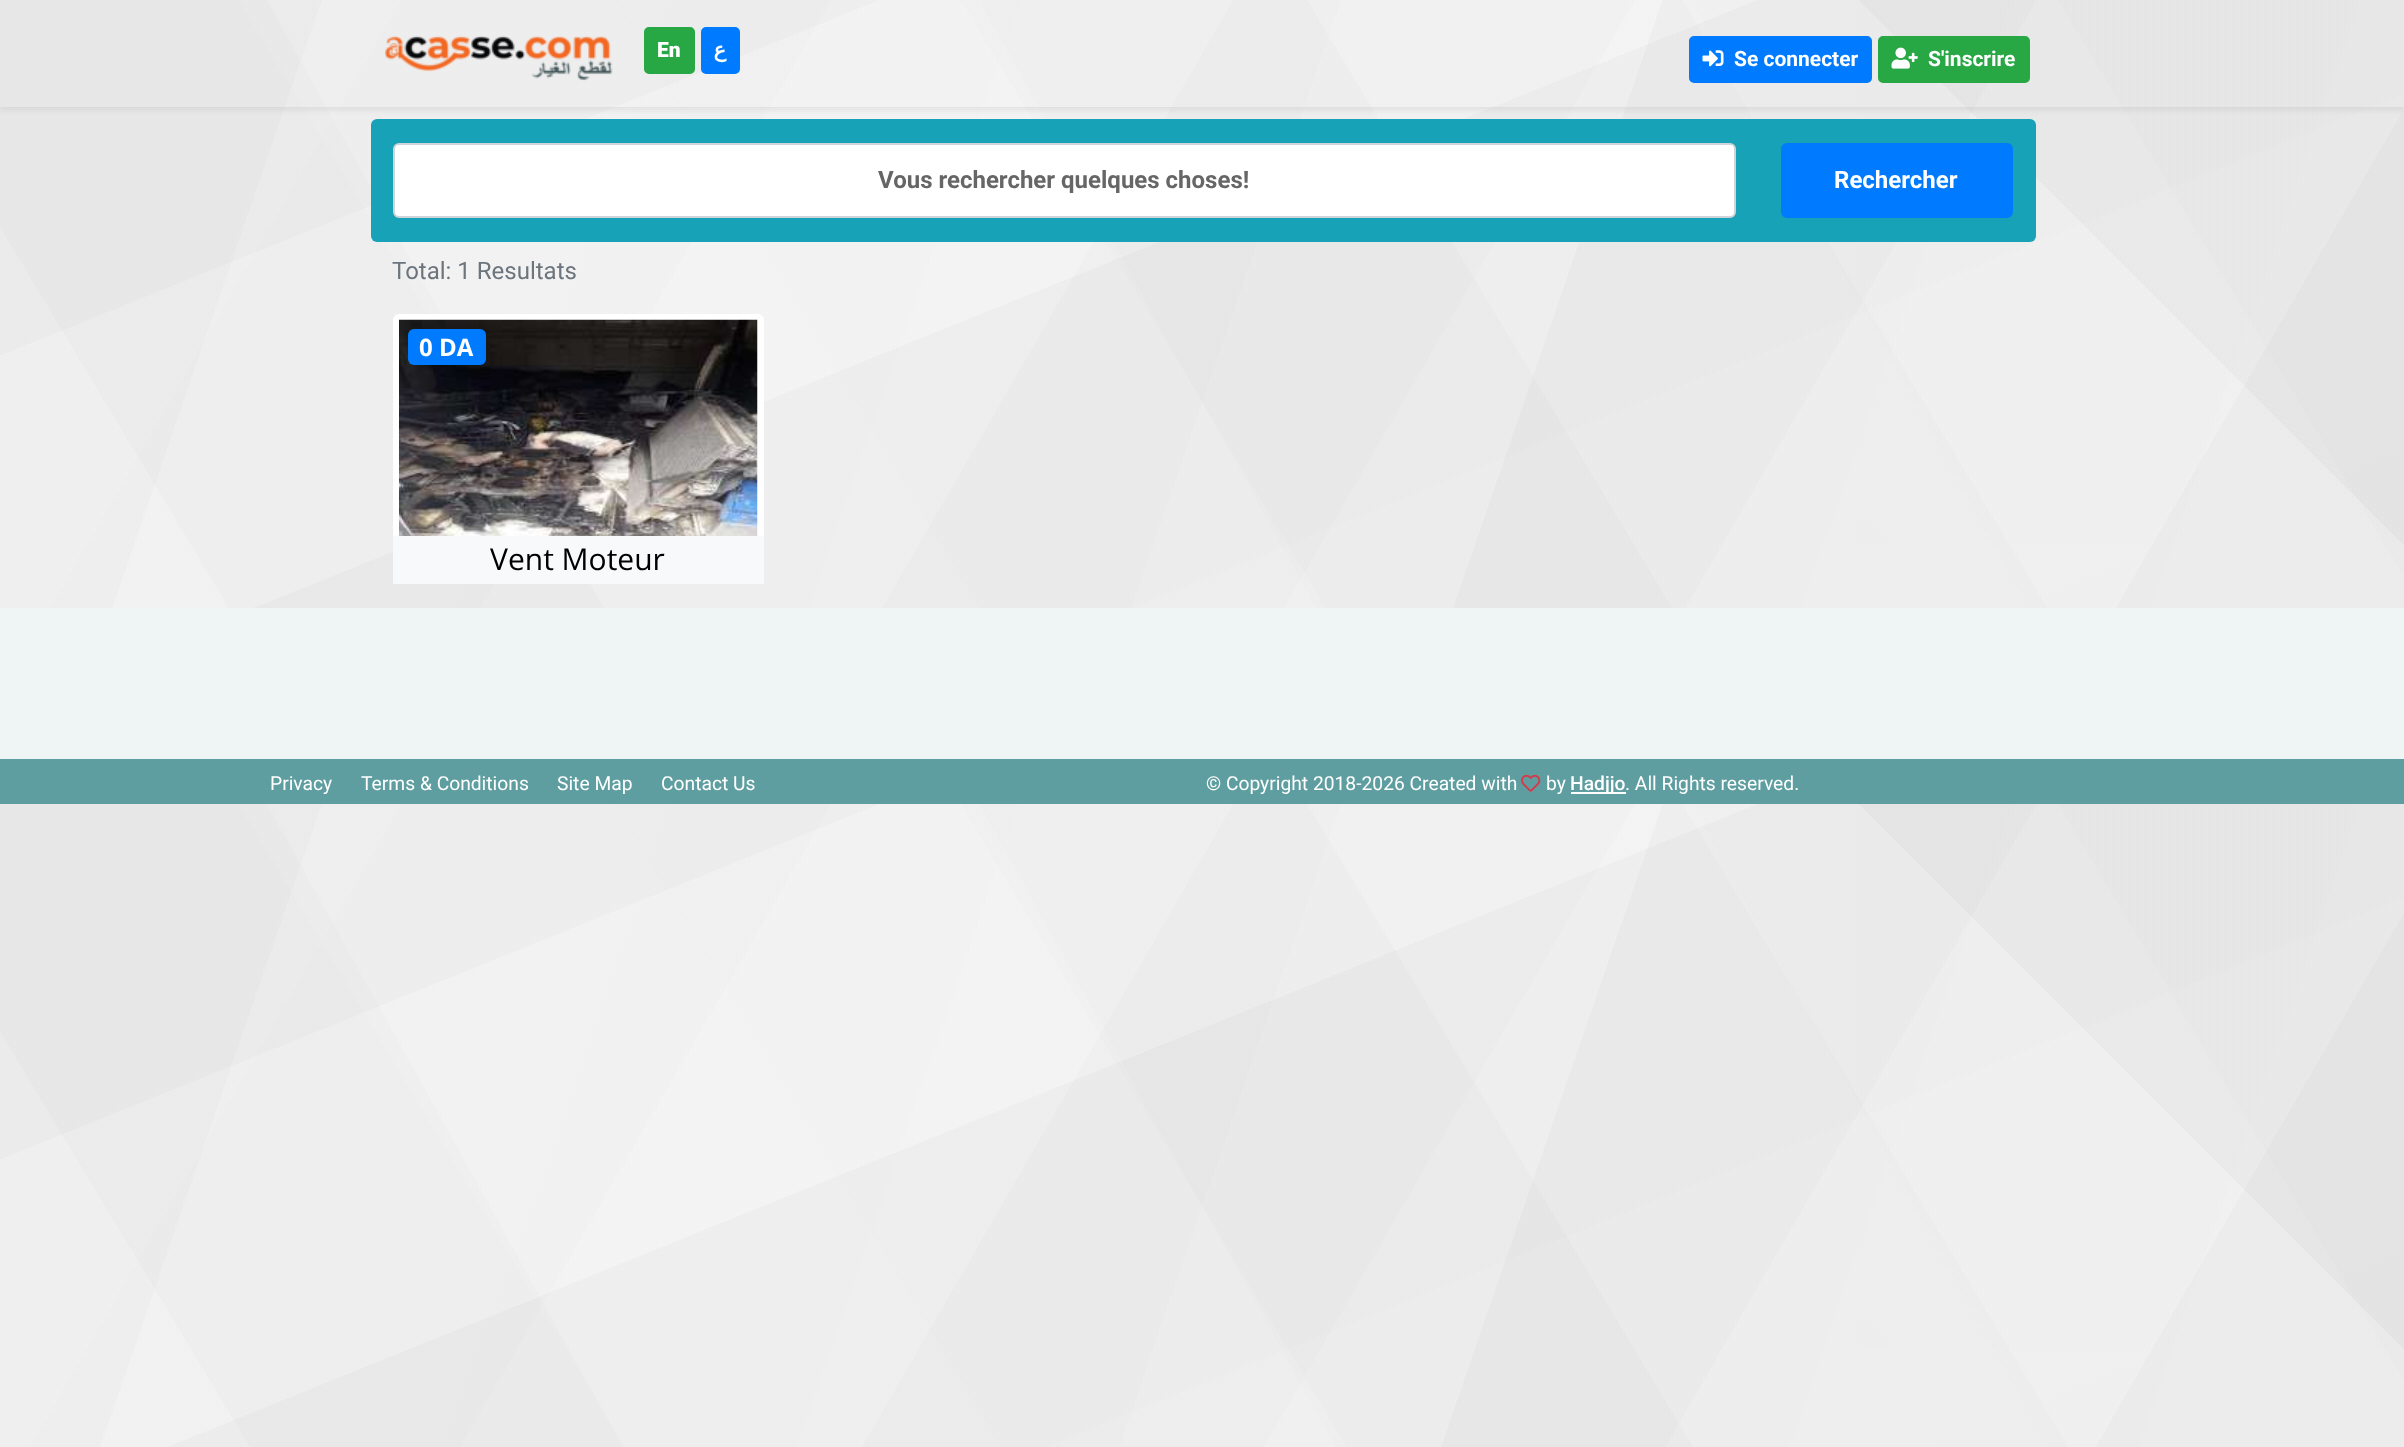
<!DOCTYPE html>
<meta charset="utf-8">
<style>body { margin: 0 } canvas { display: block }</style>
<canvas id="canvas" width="2404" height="1447"></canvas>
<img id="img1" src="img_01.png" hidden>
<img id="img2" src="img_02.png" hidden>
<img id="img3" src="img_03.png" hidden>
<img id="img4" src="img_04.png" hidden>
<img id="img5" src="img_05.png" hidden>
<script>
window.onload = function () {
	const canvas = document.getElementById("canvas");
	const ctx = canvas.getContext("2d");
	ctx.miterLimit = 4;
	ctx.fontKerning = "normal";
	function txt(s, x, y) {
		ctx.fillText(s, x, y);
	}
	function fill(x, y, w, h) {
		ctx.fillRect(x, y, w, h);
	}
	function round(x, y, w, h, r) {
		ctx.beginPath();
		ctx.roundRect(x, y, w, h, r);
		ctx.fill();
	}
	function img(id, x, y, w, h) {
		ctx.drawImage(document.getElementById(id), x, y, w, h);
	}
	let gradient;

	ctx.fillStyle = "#FFFFFF";
	fill(0, 0, 2404, 1447);
	gradient = ctx.createLinearGradient(2292, -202, 112, 1006);
	gradient.addColorStop(0, "#FCFCFC");
	gradient.addColorStop(0.25, "#FCFCFC");
	gradient.addColorStop(0.25, "#FDFDFD");
	gradient.addColorStop(0.5, "#FDFDFD");
	gradient.addColorStop(0.5, "#FFFFFF");
	gradient.addColorStop(0.75, "#FFFFFF");
	gradient.addColorStop(0.75, "#FCFCFC");
	gradient.addColorStop(1, "#FCFCFC");
	ctx.fillStyle = gradient;
	fill(0, 0, 2404, 608);
	gradient = ctx.createLinearGradient(2292, 602, 112, 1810);
	gradient.addColorStop(0, "#FCFCFC");
	gradient.addColorStop(0.25, "#FCFCFC");
	gradient.addColorStop(0.25, "#FDFDFD");
	gradient.addColorStop(0.5, "#FDFDFD");
	gradient.addColorStop(0.5, "#FFFFFF");
	gradient.addColorStop(0.75, "#FFFFFF");
	gradient.addColorStop(0.75, "#FCFCFC");
	gradient.addColorStop(1, "#FCFCFC");
	ctx.fillStyle = gradient;
	fill(0, 804, 2404, 643);
	gradient = ctx.createLinearGradient(141, 1039, 2263, -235);
	gradient.addColorStop(0, "rgba(224, 224, 224, 0.03)");
	gradient.addColorStop(0.12, "rgba(224, 224, 224, 0.03)");
	gradient.addColorStop(0.12, "rgba(97, 97, 97, 0.03)");
	gradient.addColorStop(0.25, "rgba(97, 97, 97, 0.03)");
	gradient.addColorStop(0.25, "rgba(143, 143, 143, 0.03)");
	gradient.addColorStop(0.38, "rgba(143, 143, 143, 0.03)");
	gradient.addColorStop(0.38, "rgba(110, 110, 110, 0.03)");
	gradient.addColorStop(0.5, "rgba(110, 110, 110, 0.03)");
	gradient.addColorStop(0.5, "rgba(34, 34, 34, 0.03)");
	gradient.addColorStop(0.62, "rgba(34, 34, 34, 0.03)");
	gradient.addColorStop(0.62, "rgba(155, 155, 155, 0.03)");
	gradient.addColorStop(0.75, "rgba(155, 155, 155, 0.03)");
	gradient.addColorStop(0.75, "rgba(249, 249, 249, 0.03)");
	gradient.addColorStop(0.88, "rgba(249, 249, 249, 0.03)");
	gradient.addColorStop(0.88, "rgba(179, 179, 179, 0.03)");
	gradient.addColorStop(1, "rgba(179, 179, 179, 0.03)");
	ctx.fillStyle = gradient;
	fill(0, 0, 2404, 608);
	gradient = ctx.createLinearGradient(141, 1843, 2263, 569);
	gradient.addColorStop(0, "rgba(224, 224, 224, 0.03)");
	gradient.addColorStop(0.12, "rgba(224, 224, 224, 0.03)");
	gradient.addColorStop(0.12, "rgba(97, 97, 97, 0.03)");
	gradient.addColorStop(0.25, "rgba(97, 97, 97, 0.03)");
	gradient.addColorStop(0.25, "rgba(143, 143, 143, 0.03)");
	gradient.addColorStop(0.38, "rgba(143, 143, 143, 0.03)");
	gradient.addColorStop(0.38, "rgba(110, 110, 110, 0.03)");
	gradient.addColorStop(0.5, "rgba(110, 110, 110, 0.03)");
	gradient.addColorStop(0.5, "rgba(34, 34, 34, 0.03)");
	gradient.addColorStop(0.62, "rgba(34, 34, 34, 0.03)");
	gradient.addColorStop(0.62, "rgba(155, 155, 155, 0.03)");
	gradient.addColorStop(0.75, "rgba(155, 155, 155, 0.03)");
	gradient.addColorStop(0.75, "rgba(249, 249, 249, 0.03)");
	gradient.addColorStop(0.88, "rgba(249, 249, 249, 0.03)");
	gradient.addColorStop(0.88, "rgba(179, 179, 179, 0.03)");
	gradient.addColorStop(1, "rgba(179, 179, 179, 0.03)");
	ctx.fillStyle = gradient;
	fill(0, 804, 2404, 643);
	gradient = ctx.createLinearGradient(400, 1204, 2004, -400);
	gradient.addColorStop(0, "rgba(214, 214, 214, 0.03)");
	gradient.addColorStop(0.17, "rgba(214, 214, 214, 0.03)");
	gradient.addColorStop(0.17, "rgba(255, 255, 255, 0.03)");
	gradient.addColorStop(0.33, "rgba(255, 255, 255, 0.03)");
	gradient.addColorStop(0.33, "rgba(250, 250, 250, 0.03)");
	gradient.addColorStop(0.5, "rgba(250, 250, 250, 0.03)");
	gradient.addColorStop(0.5, "rgba(231, 231, 231, 0.03)");
	gradient.addColorStop(0.67, "rgba(231, 231, 231, 0.03)");
	gradient.addColorStop(0.67, "rgba(241, 241, 241, 0.03)");
	gradient.addColorStop(0.83, "rgba(241, 241, 241, 0.03)");
	gradient.addColorStop(0.83, "rgba(31, 31, 31, 0.03)");
	gradient.addColorStop(1, "rgba(31, 31, 31, 0.03)");
	ctx.fillStyle = gradient;
	fill(1859, 0, 545, 545);
	gradient = ctx.createLinearGradient(400, 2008, 2004, 404);
	gradient.addColorStop(0, "rgba(214, 214, 214, 0.03)");
	gradient.addColorStop(0.17, "rgba(214, 214, 214, 0.03)");
	gradient.addColorStop(0.17, "rgba(255, 255, 255, 0.03)");
	gradient.addColorStop(0.33, "rgba(255, 255, 255, 0.03)");
	gradient.addColorStop(0.33, "rgba(250, 250, 250, 0.03)");
	gradient.addColorStop(0.5, "rgba(250, 250, 250, 0.03)");
	gradient.addColorStop(0.5, "rgba(231, 231, 231, 0.03)");
	gradient.addColorStop(0.67, "rgba(231, 231, 231, 0.03)");
	gradient.addColorStop(0.67, "rgba(241, 241, 241, 0.03)");
	gradient.addColorStop(0.83, "rgba(241, 241, 241, 0.03)");
	gradient.addColorStop(0.83, "rgba(31, 31, 31, 0.03)");
	gradient.addColorStop(1, "rgba(31, 31, 31, 0.03)");
	ctx.fillStyle = gradient;
	fill(1859, 804, 545, 545);
	gradient = ctx.createLinearGradient(126, -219, 2278, 1023);
	gradient.addColorStop(0, "rgba(106, 106, 106, 0.03)");
	gradient.addColorStop(0.14, "rgba(106, 106, 106, 0.03)");
	gradient.addColorStop(0.14, "rgba(67, 67, 67, 0.03)");
	gradient.addColorStop(0.29, "rgba(67, 67, 67, 0.03)");
	gradient.addColorStop(0.29, "rgba(134, 134, 134, 0.03)");
	gradient.addColorStop(0.43, "rgba(134, 134, 134, 0.03)");
	gradient.addColorStop(0.43, "rgba(19, 19, 19, 0.03)");
	gradient.addColorStop(0.57, "rgba(19, 19, 19, 0.03)");
	gradient.addColorStop(0.57, "rgba(101, 101, 101, 0.03)");
	gradient.addColorStop(0.71, "rgba(101, 101, 101, 0.03)");
	gradient.addColorStop(0.71, "rgba(205, 205, 205, 0.03)");
	gradient.addColorStop(0.86, "rgba(205, 205, 205, 0.03)");
	gradient.addColorStop(0.86, "rgba(53, 53, 53, 0.03)");
	gradient.addColorStop(1, "rgba(53, 53, 53, 0.03)");
	ctx.fillStyle = gradient;
	fill(0, 0, 2404, 608);
	gradient = ctx.createLinearGradient(126, 585, 2278, 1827);
	gradient.addColorStop(0, "rgba(106, 106, 106, 0.03)");
	gradient.addColorStop(0.14, "rgba(106, 106, 106, 0.03)");
	gradient.addColorStop(0.14, "rgba(67, 67, 67, 0.03)");
	gradient.addColorStop(0.29, "rgba(67, 67, 67, 0.03)");
	gradient.addColorStop(0.29, "rgba(134, 134, 134, 0.03)");
	gradient.addColorStop(0.43, "rgba(134, 134, 134, 0.03)");
	gradient.addColorStop(0.43, "rgba(19, 19, 19, 0.03)");
	gradient.addColorStop(0.57, "rgba(19, 19, 19, 0.03)");
	gradient.addColorStop(0.57, "rgba(101, 101, 101, 0.03)");
	gradient.addColorStop(0.71, "rgba(101, 101, 101, 0.03)");
	gradient.addColorStop(0.71, "rgba(205, 205, 205, 0.03)");
	gradient.addColorStop(0.86, "rgba(205, 205, 205, 0.03)");
	gradient.addColorStop(0.86, "rgba(53, 53, 53, 0.03)");
	gradient.addColorStop(1, "rgba(53, 53, 53, 0.03)");
	ctx.fillStyle = gradient;
	fill(0, 804, 2404, 643);
	gradient = ctx.createLinearGradient(3.7, -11, 2401, 815);
	gradient.addColorStop(0, "rgba(33, 33, 33, 0.03)");
	gradient.addColorStop(0.12, "rgba(33, 33, 33, 0.03)");
	gradient.addColorStop(0.12, "rgba(147, 147, 147, 0.03)");
	gradient.addColorStop(0.25, "rgba(147, 147, 147, 0.03)");
	gradient.addColorStop(0.25, "rgba(131, 131, 131, 0.03)");
	gradient.addColorStop(0.38, "rgba(131, 131, 131, 0.03)");
	gradient.addColorStop(0.38, "rgba(151, 151, 151, 0.03)");
	gradient.addColorStop(0.5, "rgba(151, 151, 151, 0.03)");
	gradient.addColorStop(0.5, "rgba(211, 211, 211, 0.03)");
	gradient.addColorStop(0.62, "rgba(211, 211, 211, 0.03)");
	gradient.addColorStop(0.62, "rgba(39, 39, 39, 0.03)");
	gradient.addColorStop(0.75, "rgba(39, 39, 39, 0.03)");
	gradient.addColorStop(0.75, "rgba(55, 55, 55, 0.03)");
	gradient.addColorStop(0.88, "rgba(55, 55, 55, 0.03)");
	gradient.addColorStop(0.88, "rgba(82, 82, 82, 0.03)");
	gradient.addColorStop(1, "rgba(82, 82, 82, 0.03)");
	ctx.fillStyle = gradient;
	fill(0, 0, 2404, 608);
	gradient = ctx.createLinearGradient(3.7, 793, 2401, 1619);
	gradient.addColorStop(0, "rgba(33, 33, 33, 0.03)");
	gradient.addColorStop(0.12, "rgba(33, 33, 33, 0.03)");
	gradient.addColorStop(0.12, "rgba(147, 147, 147, 0.03)");
	gradient.addColorStop(0.25, "rgba(147, 147, 147, 0.03)");
	gradient.addColorStop(0.25, "rgba(131, 131, 131, 0.03)");
	gradient.addColorStop(0.38, "rgba(131, 131, 131, 0.03)");
	gradient.addColorStop(0.38, "rgba(151, 151, 151, 0.03)");
	gradient.addColorStop(0.5, "rgba(151, 151, 151, 0.03)");
	gradient.addColorStop(0.5, "rgba(211, 211, 211, 0.03)");
	gradient.addColorStop(0.62, "rgba(211, 211, 211, 0.03)");
	gradient.addColorStop(0.62, "rgba(39, 39, 39, 0.03)");
	gradient.addColorStop(0.75, "rgba(39, 39, 39, 0.03)");
	gradient.addColorStop(0.75, "rgba(55, 55, 55, 0.03)");
	gradient.addColorStop(0.88, "rgba(55, 55, 55, 0.03)");
	gradient.addColorStop(0.88, "rgba(82, 82, 82, 0.03)");
	gradient.addColorStop(1, "rgba(82, 82, 82, 0.03)");
	ctx.fillStyle = gradient;
	fill(0, 804, 2404, 643);
	gradient = ctx.createLinearGradient(894, -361, 1511, 1165);
	gradient.addColorStop(0, "rgba(84, 84, 84, 0.03)");
	gradient.addColorStop(0.2, "rgba(84, 84, 84, 0.03)");
	gradient.addColorStop(0.2, "rgba(219, 219, 219, 0.03)");
	gradient.addColorStop(0.4, "rgba(219, 219, 219, 0.03)");
	gradient.addColorStop(0.4, "rgba(54, 54, 54, 0.03)");
	gradient.addColorStop(0.6, "rgba(54, 54, 54, 0.03)");
	gradient.addColorStop(0.6, "rgba(99, 99, 99, 0.03)");
	gradient.addColorStop(0.8, "rgba(99, 99, 99, 0.03)");
	gradient.addColorStop(0.8, "rgba(92, 92, 92, 0.03)");
	gradient.addColorStop(1, "rgba(92, 92, 92, 0.03)");
	ctx.fillStyle = gradient;
	fill(0, 0, 2404, 608);
	gradient = ctx.createLinearGradient(894, 443, 1511, 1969);
	gradient.addColorStop(0, "rgba(84, 84, 84, 0.03)");
	gradient.addColorStop(0.2, "rgba(84, 84, 84, 0.03)");
	gradient.addColorStop(0.2, "rgba(219, 219, 219, 0.03)");
	gradient.addColorStop(0.4, "rgba(219, 219, 219, 0.03)");
	gradient.addColorStop(0.4, "rgba(54, 54, 54, 0.03)");
	gradient.addColorStop(0.6, "rgba(54, 54, 54, 0.03)");
	gradient.addColorStop(0.6, "rgba(99, 99, 99, 0.03)");
	gradient.addColorStop(0.8, "rgba(99, 99, 99, 0.03)");
	gradient.addColorStop(0.8, "rgba(92, 92, 92, 0.03)");
	gradient.addColorStop(1, "rgba(92, 92, 92, 0.03)");
	ctx.fillStyle = gradient;
	fill(0, 804, 2404, 643);
	ctx.save();
	ctx.beginPath();
	ctx.moveTo(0, 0);
	ctx.lineTo(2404, 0);
	ctx.lineTo(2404, 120);
	ctx.lineTo(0, 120);
	ctx.closePath();
	ctx.moveTo(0, 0);
	ctx.lineTo(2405, 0);
	ctx.lineTo(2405, 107);
	ctx.lineTo(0, 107);
	ctx.closePath();
	ctx.clip("evenodd");
	ctx.fillStyle = "rgba(0, 0, 0, 0.07)";
	ctx.filter = "blur(3px)";
	ctx.beginPath();
	ctx.rect(0, 3, 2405, 107);
	ctx.fill();
	ctx.filter = "none";
	ctx.restore();
	img("img1", 384, 35, 229, 46);
	ctx.fillStyle = "#28A745";
	ctx.beginPath();
	ctx.roundRect(645, 28, 49, 45, 4);
	ctx.fill();
	ctx.strokeStyle = "#28A745";
	ctx.lineWidth = 2;
	ctx.stroke();
	ctx.fillStyle = "#007BFF";
	ctx.beginPath();
	ctx.roundRect(702, 28, 37, 45, 4);
	ctx.fill();
	ctx.strokeStyle = "#007BFF";
	ctx.stroke();
	ctx.beginPath();
	ctx.roundRect(1690, 37, 181, 45, 4);
	ctx.fill();
	ctx.stroke();
	img("img2", 1702, 50, 22, 17);
	ctx.fillStyle = "#28A745";
	ctx.beginPath();
	ctx.roundRect(1879, 37, 150, 45, 4);
	ctx.fill();
	ctx.strokeStyle = "#28A745";
	ctx.stroke();
	img("img3", 1891, 47, 27, 22);
	ctx.fillStyle = "#17A2B8";
	round(371, 119, 1665, 123, 6);
	ctx.fillStyle = "#FFFFFF";
	ctx.beginPath();
	ctx.roundRect(394, 144, 1341, 73, 5);
	ctx.fill();
	ctx.strokeStyle = "#CED4DA";
	ctx.stroke();
	ctx.fillStyle = "#007BFF";
	ctx.beginPath();
	ctx.roundRect(1782, 144, 230, 73, 5);
	ctx.fill();
	ctx.strokeStyle = "#007BFF";
	ctx.stroke();
	ctx.fillStyle = "#FFFFFF";
	round(393, 314, 371, 270, 6);
	img("img4", 399, 319, 359, 217);
	ctx.fillStyle = "#007BFF";
	round(408, 329, 78, 36, 6);
	ctx.fillStyle = "#F8F9FA";
	fill(393, 536, 371, 48);
	ctx.fillStyle = "#EFF5F5";
	fill(0, 608, 2404, 151);
	ctx.fillStyle = "#5F9EA0";
	fill(0, 759, 2404, 45);
	img("img5", 1521, 774, 20, 18);
	ctx.fillStyle = "#FFFFFF";
	fill(1571, 792, 55, 2);
	ctx.font = "900 21px Roboto";
	txt("En", 657, 57);
	ctx.direction = "rtl";
	ctx.font = "bold 21px DejaVu Sans";
	txt("ع", 726, 57);
	ctx.direction = "ltr";
	ctx.font = "bold 21px Roboto";
	txt("Se connecter", 1734, 66);
	txt("S'inscrire", 1928, 66);
	ctx.font = "bold 24px Roboto";
	ctx.fillStyle = "#666666";
	txt("Vous rechercher quelques choses!", 878, 188);
	ctx.fillStyle = "#FFFFFF";
	txt("Rechercher", 1834, 188);
	ctx.font = "24px Roboto";
	ctx.fillStyle = "#6C757D";
	txt("Total: 1 Resultats", 392, 279);
	ctx.font = "bold 24px Open Sans";
	ctx.fillStyle = "#FFFFFF";
	txt("0 DA", 419, 356);
	ctx.font = "30px Open Sans";
	ctx.fillStyle = "#000000";
	txt("Vent Moteur", 490, 570);
	ctx.font = "19.25px Roboto";
	ctx.fillStyle = "#FFFFFF";
	txt("Privacy", 270, 790);
	txt("Terms & Conditions", 361, 790);
	txt("Site Map", 557, 790);
	txt("Contact Us", 661, 790);
	txt("© Copyright 2018-2026 Created with", 1206, 790);
	txt("by", 1546, 790);
	ctx.font = "500 19.25px Roboto";
	txt("Hadjjo", 1570, 790);
	ctx.font = "19.25px Roboto";
	txt(". All Rights reserved.", 1625, 790);
};
</script>
